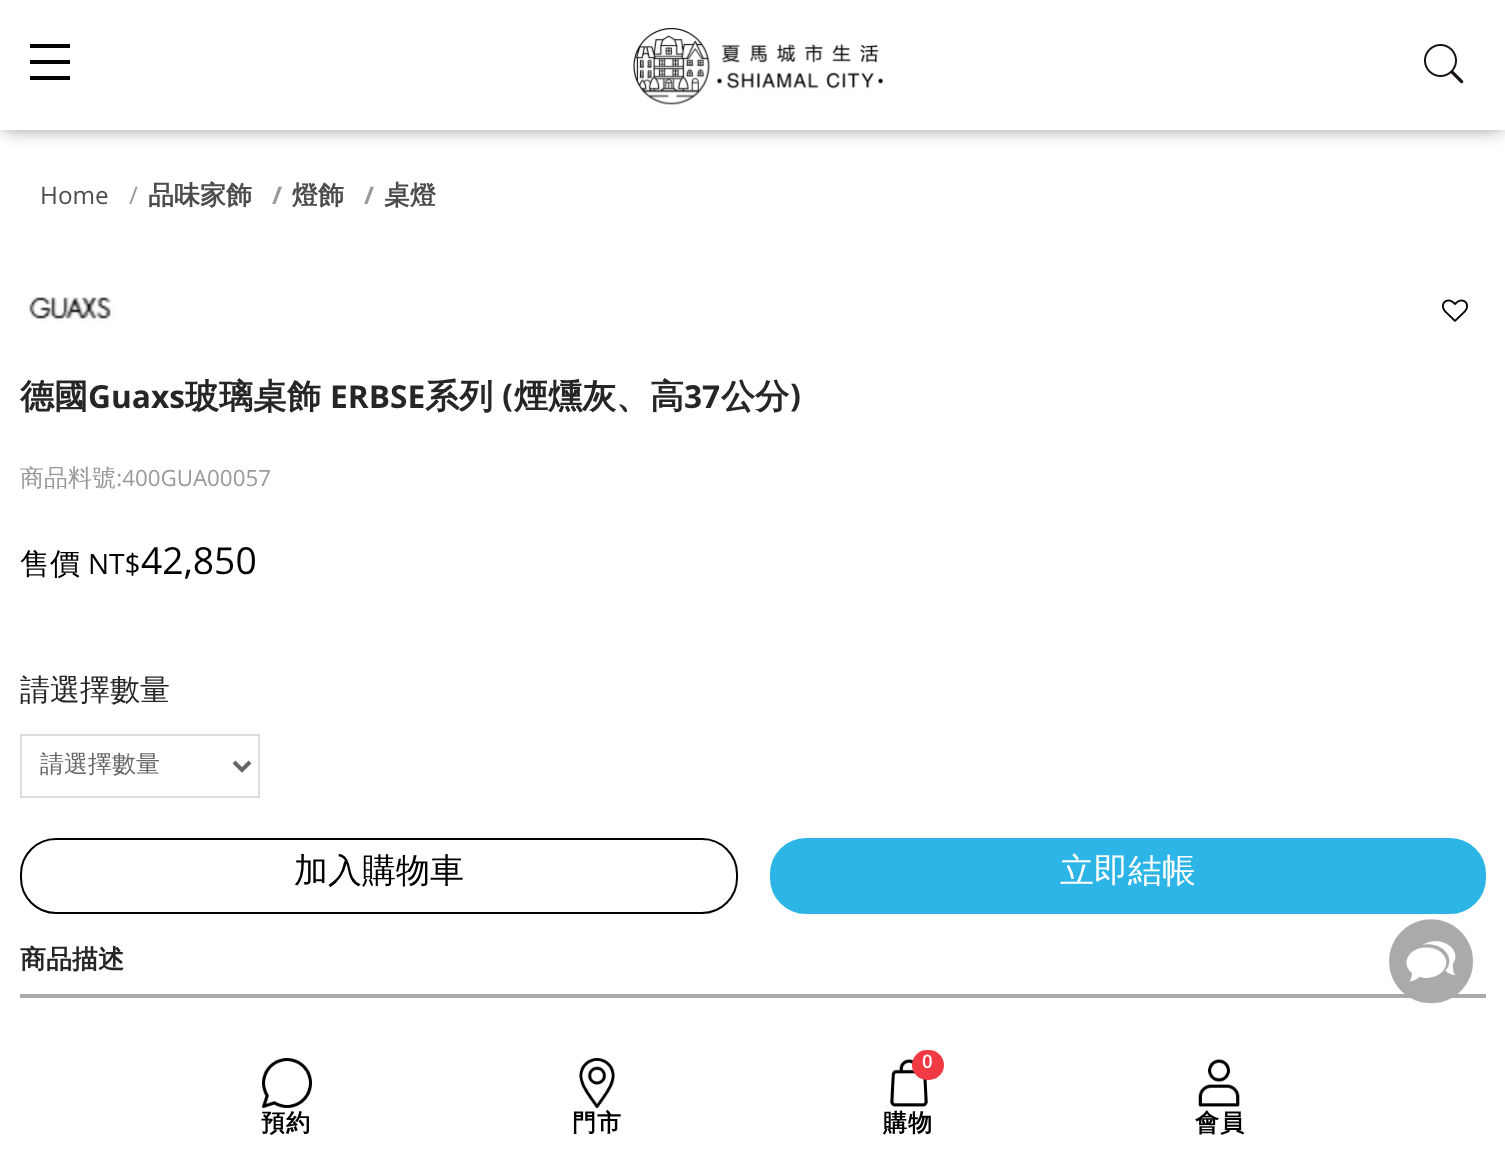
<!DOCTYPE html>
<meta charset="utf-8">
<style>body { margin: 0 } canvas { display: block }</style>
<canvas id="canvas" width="1505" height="1166"></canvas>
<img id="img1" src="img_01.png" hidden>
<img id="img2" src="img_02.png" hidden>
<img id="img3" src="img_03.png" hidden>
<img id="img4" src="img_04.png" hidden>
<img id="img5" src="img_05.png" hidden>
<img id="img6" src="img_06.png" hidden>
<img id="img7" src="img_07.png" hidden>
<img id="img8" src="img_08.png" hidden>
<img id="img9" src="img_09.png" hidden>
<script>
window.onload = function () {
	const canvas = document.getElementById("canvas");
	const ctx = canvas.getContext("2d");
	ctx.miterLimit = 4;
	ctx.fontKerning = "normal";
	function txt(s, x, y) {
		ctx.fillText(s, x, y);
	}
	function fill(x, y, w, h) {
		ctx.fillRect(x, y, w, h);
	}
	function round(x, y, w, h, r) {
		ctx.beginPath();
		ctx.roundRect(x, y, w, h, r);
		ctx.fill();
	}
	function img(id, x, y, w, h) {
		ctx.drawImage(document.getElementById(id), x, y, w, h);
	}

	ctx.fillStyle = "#FFFFFF";
	fill(0, 0, 1505, 1166);
	ctx.fillStyle = "rgba(0, 0, 0, 0.6)";
	ctx.filter = "blur(10px)";
	ctx.beginPath();
	ctx.rect(4, 4, 1498, 122);
	ctx.fill();
	ctx.filter = "none";
	ctx.fillStyle = "#FFFFFF";
	fill(0, 0, 1505, 130);
	ctx.fillStyle = "#000000";
	fill(30, 44, 40, 4);
	fill(30, 60, 40, 4);
	fill(30, 76, 40, 4);
	img("img1", 632, 28, 252, 77);
	img("img2", 28, 297, 87, 25);
	img("img3", 1442, 299, 26, 23);
	ctx.strokeStyle = "#DDDDDD";
	ctx.lineWidth = 2;
	ctx.strokeRect(21, 735, 238, 62);
	ctx.beginPath();
	ctx.moveTo(234, 762);
	ctx.lineTo(242, 770);
	ctx.lineTo(250, 762);
	ctx.strokeStyle = "#666666";
	ctx.lineWidth = 4;
	ctx.stroke();
	ctx.beginPath();
	ctx.roundRect(21, 839, 716, 74, 35);
	ctx.strokeStyle = "#000000";
	ctx.lineWidth = 2;
	ctx.stroke();
	ctx.fillStyle = "#2CB5E6";
	ctx.beginPath();
	ctx.roundRect(771, 839, 714, 74, 35);
	ctx.fill();
	ctx.strokeStyle = "#2CB5E6";
	ctx.stroke();
	ctx.fillStyle = "#AAAAAA";
	fill(20, 994, 1466, 4);
	img("img4", 1389, 919, 85, 85);
	img("img5", 1424, 44, 40, 40);
	img("img6", 262, 1058, 50, 50);
	img("img7", 579, 1058, 36, 50);
	img("img8", 890, 1059, 38, 48);
	ctx.fillStyle = "#F23A44";
	round(912, 1050, 32, 30, 15);
	img("img9", 1198, 1059, 42, 48);
	ctx.font = "26px Khula";
	ctx.fillStyle = "#4D4D4D";
	txt("Home", 40, 204);
	ctx.fillStyle = "#999999";
	txt("/", 129, 204);
	ctx.font = "bold 26px WenQuanYi Zen Hei";
	ctx.fillStyle = "#4D4D4D";
	txt("品味家飾", 148, 204);
	ctx.font = "bold 26px Khula";
	ctx.fillStyle = "#999999";
	txt("/", 272, 204);
	ctx.font = "bold 26px WenQuanYi Zen Hei";
	ctx.fillStyle = "#4D4D4D";
	txt("燈飾", 292, 204);
	ctx.font = "bold 26px Khula";
	ctx.fillStyle = "#999999";
	txt("/", 364, 204);
	ctx.font = "bold 26px WenQuanYi Zen Hei";
	ctx.fillStyle = "#4D4D4D";
	txt("桌燈", 384, 204);
	ctx.font = "bold 34px WenQuanYi Zen Hei";
	ctx.fillStyle = "#262626";
	txt("德國", 20, 408);
	ctx.font = "bold 34px Khula";
	txt("Guaxs", 88, 408);
	ctx.font = "bold 34px WenQuanYi Zen Hei";
	txt("玻璃桌飾", 185, 408);
	ctx.font = "bold 34px Khula";
	txt("ERBSE", 330, 408);
	ctx.font = "bold 34px WenQuanYi Zen Hei";
	txt("系列", 425, 408);
	ctx.font = "bold 34px Khula";
	txt("(", 502, 408);
	ctx.font = "bold 34px WenQuanYi Zen Hei";
	txt("煙燻灰、高", 514, 408);
	ctx.font = "bold 34px Khula";
	txt("37", 684, 408);
	ctx.font = "bold 34px WenQuanYi Zen Hei";
	txt("公分", 721, 408);
	ctx.font = "bold 34px Khula";
	txt(")", 789, 408);
	ctx.font = "500 24px WenQuanYi Zen Hei";
	ctx.fillStyle = "#999999";
	txt("商品料號", 20, 486);
	ctx.font = "24px Khula";
	txt(":400GUA00057", 116, 486);
	ctx.font = "500 30px WenQuanYi Zen Hei";
	ctx.fillStyle = "#000000";
	txt("售價", 20, 574);
	ctx.font = "30px Khula";
	txt("NT$", 88, 574);
	ctx.font = "40px Khula";
	txt("42,850", 141, 574);
	ctx.font = "500 30px WenQuanYi Zen Hei";
	ctx.fillStyle = "#262626";
	txt("請選擇數量", 20, 700);
	ctx.font = "500 24px WenQuanYi Zen Hei";
	ctx.fillStyle = "#666666";
	txt("請選擇數量", 40, 772);
	ctx.font = "500 34px WenQuanYi Zen Hei";
	ctx.fillStyle = "#000000";
	txt("加入購物車", 294, 882);
	ctx.fillStyle = "#FFFFFF";
	txt("立即結帳", 1060, 882);
	ctx.font = "bold 26px WenQuanYi Zen Hei";
	ctx.fillStyle = "#262626";
	txt("商品描述", 20, 968);
	ctx.letterSpacing = "1px";
	ctx.font = "bold 24px WenQuanYi Zen Hei";
	ctx.fillStyle = "#000000";
	txt("預約", 261, 1131);
	txt("門市", 572, 1131);
	ctx.font = "600 20px Khula";
	ctx.fillStyle = "#FFFFFF";
	txt("0", 922, 1068);
	ctx.font = "bold 24px WenQuanYi Zen Hei";
	ctx.fillStyle = "#000000";
	txt("購物", 883, 1131);
	txt("會員", 1195, 1131);
};
</script>
